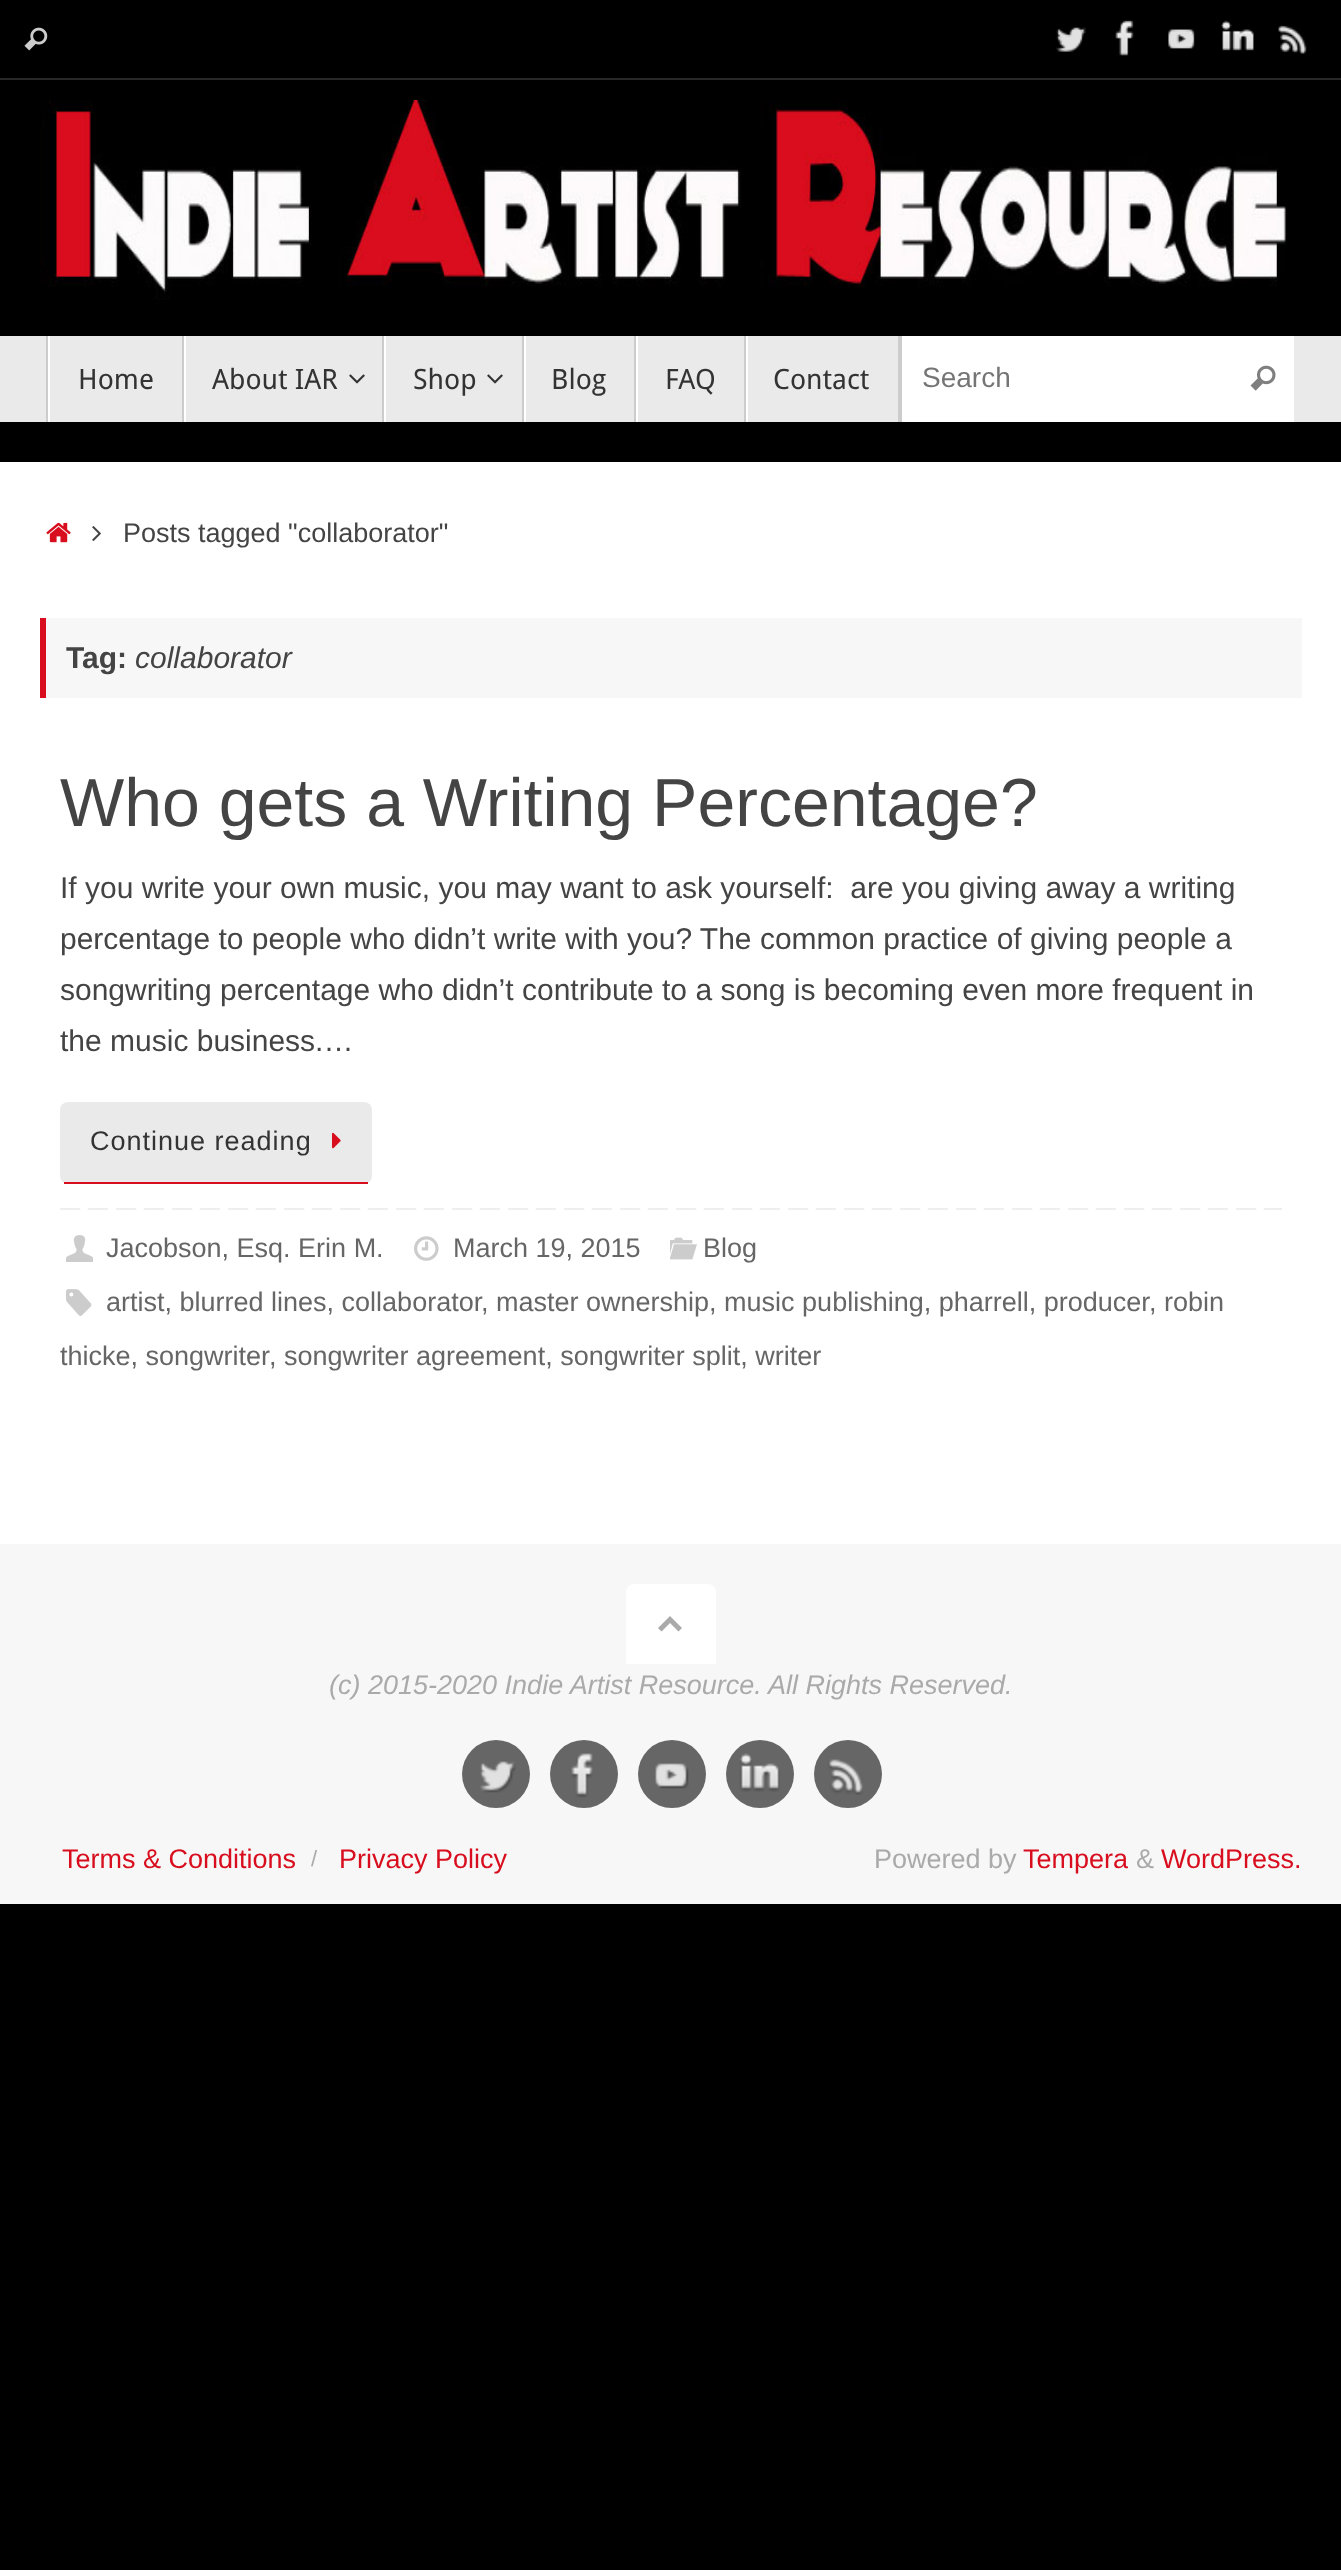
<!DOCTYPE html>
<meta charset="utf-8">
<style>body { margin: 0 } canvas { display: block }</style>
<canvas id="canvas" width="1341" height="2570"></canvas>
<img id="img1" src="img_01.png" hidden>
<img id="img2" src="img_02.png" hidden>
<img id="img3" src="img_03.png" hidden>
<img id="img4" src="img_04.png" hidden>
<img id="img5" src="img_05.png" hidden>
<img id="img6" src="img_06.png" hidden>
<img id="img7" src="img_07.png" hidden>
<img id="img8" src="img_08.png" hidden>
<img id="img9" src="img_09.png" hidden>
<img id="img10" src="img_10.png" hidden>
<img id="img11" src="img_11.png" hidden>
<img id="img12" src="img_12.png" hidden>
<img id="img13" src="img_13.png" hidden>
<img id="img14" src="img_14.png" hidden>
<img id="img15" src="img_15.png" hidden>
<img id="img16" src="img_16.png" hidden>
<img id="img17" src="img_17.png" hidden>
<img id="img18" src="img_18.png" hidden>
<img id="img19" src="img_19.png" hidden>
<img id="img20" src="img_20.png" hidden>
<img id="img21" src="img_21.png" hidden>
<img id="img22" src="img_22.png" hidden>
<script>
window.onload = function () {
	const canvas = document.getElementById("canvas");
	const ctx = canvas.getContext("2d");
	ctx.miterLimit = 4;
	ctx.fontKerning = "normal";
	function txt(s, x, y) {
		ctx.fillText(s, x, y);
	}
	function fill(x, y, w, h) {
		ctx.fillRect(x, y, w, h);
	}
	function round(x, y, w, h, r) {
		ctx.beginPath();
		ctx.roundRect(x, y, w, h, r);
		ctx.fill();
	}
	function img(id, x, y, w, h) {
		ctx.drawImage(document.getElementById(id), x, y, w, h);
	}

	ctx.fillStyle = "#000000";
	fill(0, 0, 1341, 2570);
	ctx.fillStyle = "#282828";
	fill(0, 78, 1341, 2);
	img("img1", 24, 27, 24, 24);
	img("img2", 1056, 27, 30, 25);
	img("img3", 1115, 20, 19, 36);
	img("img4", 1168, 29, 27, 20);
	img("img5", 1220, 20, 34, 31);
	img("img6", 1278, 25, 29, 29);
	img("img7", 40, 100, 1247, 200);
	ctx.fillStyle = "#EAEAEA";
	fill(0, 336, 1341, 86);
	ctx.fillStyle = "#CCCCCC";
	fill(46, 336, 2, 86);
	ctx.fillStyle = "#FFFFFF";
	fill(48, 336, 2, 86);
	fill(184, 336, 2, 86);
	ctx.fillStyle = "#CCCCCC";
	fill(182, 336, 2, 86);
	ctx.fillStyle = "#FFFFFF";
	fill(384, 336, 2, 86);
	ctx.fillStyle = "#CCCCCC";
	fill(382, 336, 2, 86);
	img("img8", 349, 374, 16, 10);
	ctx.fillStyle = "#FFFFFF";
	fill(524, 336, 2, 86);
	ctx.fillStyle = "#CCCCCC";
	fill(522, 336, 2, 86);
	img("img8", 487, 374, 16, 10);
	ctx.fillStyle = "#FFFFFF";
	fill(636, 336, 2, 86);
	ctx.fillStyle = "#CCCCCC";
	fill(634, 336, 2, 86);
	ctx.fillStyle = "#FFFFFF";
	fill(746, 336, 2, 86);
	ctx.fillStyle = "#CCCCCC";
	fill(744, 336, 2, 86);
	fill(898, 336, 4, 86);
	ctx.fillStyle = "#FFFFFF";
	fill(902, 336, 392, 86);
	img("img9", 1250, 365, 26, 26);
	fill(0, 462, 1341, 1082);
	img("img10", 46, 522, 25, 21);
	img("img11", 92, 526, 9, 15);
	ctx.fillStyle = "#F7F7F7";
	fill(46, 618, 1256, 80);
	ctx.fillStyle = "#D80D1D";
	fill(40, 618, 6, 80);
	ctx.fillStyle = "#EAEAEA";
	round(60, 1102, 312, 82, 8);
	ctx.fillStyle = "#D80D1D";
	fill(64, 1182, 304, 2);
	img("img12", 332, 1132, 9, 17);
	img("img13", 60, 1208, 1222, 2);
	img("img14", 66, 1235, 27, 27);
	img("img15", 414, 1236, 25, 25);
	img("img16", 670, 1237, 27, 23);
	img("img17", 66, 1289, 26, 27);
	ctx.fillStyle = "#F7F7F7";
	fill(0, 1544, 1341, 360);
	ctx.fillStyle = "#FFFFFF";
	ctx.beginPath();
	ctx.roundRect(626, 1584, 90, 80, [8, 8, 0, 0]);
	ctx.fill();
	ctx.fillStyle = "#AAAAAA";
	ctx.beginPath();
	ctx.moveTo(658, 1628);
	ctx.lineTo(670, 1616);
	ctx.lineTo(682, 1628);
	ctx.lineTo(678.5, 1631.5);
	ctx.lineTo(670, 1623);
	ctx.lineTo(661.5, 1631.5);
	ctx.closePath();
	ctx.fill();
	ctx.fillStyle = "#666666";
	ctx.beginPath();
	ctx.arc(496, 1774, 34, 0, Math.PI * 2);
	ctx.fill();
	img("img18", 480, 1761, 36, 32);
	ctx.beginPath();
	ctx.arc(584, 1774, 34, 0, Math.PI * 2);
	ctx.fill();
	img("img19", 571, 1753, 22, 45);
	ctx.beginPath();
	ctx.arc(672, 1774, 34, 0, Math.PI * 2);
	ctx.fill();
	img("img20", 655, 1763, 34, 26);
	ctx.beginPath();
	ctx.arc(760, 1774, 34, 0, Math.PI * 2);
	ctx.fill();
	img("img21", 739, 1753, 41, 39);
	ctx.beginPath();
	ctx.arc(848, 1774, 34, 0, Math.PI * 2);
	ctx.fill();
	img("img22", 828, 1759, 35, 36);
	ctx.font = "28px Droid Sans";
	ctx.fillStyle = "#333333";
	txt("Home", 78, 389);
	txt("About IAR", 212, 389);
	txt("Shop", 413, 389);
	txt("Blog", 551, 389);
	txt("FAQ", 665, 389);
	txt("Contact", 773, 389);
	ctx.font = "28px Liberation Sans";
	ctx.fillStyle = "#757575";
	txt("Search", 922, 387);
	ctx.font = "27px Liberation Sans";
	ctx.fillStyle = "#444444";
	txt("Posts tagged \"collaborator\"", 123, 542);
	ctx.font = "bold 30px Liberation Sans";
	txt("Tag:", 66, 668);
	ctx.font = "italic 30px Liberation Sans";
	txt("collaborator", 135, 668);
	ctx.font = "68px Liberation Sans";
	txt("Who gets a Writing Percentage?", 60, 826);
	ctx.font = "30px Liberation Sans";
	txt("If you write your own music, you may want to ask yourself:  are you giving away a writing", 60, 898);
	txt("percentage to people who didn’t write with you? The common practice of giving people a", 60, 949);
	txt("songwriting percentage who didn’t contribute to a song is becoming even more frequent in", 60, 1000);
	txt("the music business.…", 60, 1051);
	ctx.letterSpacing = "1px";
	ctx.font = "27px Liberation Sans";
	ctx.fillStyle = "#333333";
	txt("Continue reading", 90, 1150);
	ctx.letterSpacing = "0px";
	ctx.fillStyle = "#666666";
	txt("Jacobson, Esq. Erin M.", 106, 1257);
	txt("March 19, 2015", 453, 1257);
	txt("Blog", 703, 1257);
	txt("artist, blurred lines, collaborator", 106, 1311);
	txt(", master ownership, music publishing, pharrell, producer", 481, 1311);
	txt(", robin", 1149, 1311);
	txt("thicke, songwriter", 60, 1365);
	txt(", songwriter agreement, songwriter split, writer", 269, 1365);
	ctx.font = "italic 27px Liberation Sans";
	ctx.fillStyle = "#AAAAAA";
	txt("(c) 2015-2020 Indie Artist Resource.", 329, 1694);
	txt("All Rights Reserved.", 768, 1694);
	ctx.font = "27px Liberation Sans";
	ctx.fillStyle = "#D80D1D";
	txt("Terms & Conditions", 62, 1868);
	ctx.font = "22px Liberation Sans";
	ctx.fillStyle = "#AAAAAA";
	txt("/", 311, 1866);
	ctx.font = "27px Liberation Sans";
	ctx.fillStyle = "#D80D1D";
	txt("Privacy Policy", 339, 1868);
	ctx.fillStyle = "#AAAAAA";
	txt("Powered by", 874, 1868);
	ctx.fillStyle = "#D80D1D";
	txt("Tempera", 1023, 1868);
	ctx.fillStyle = "#AAAAAA";
	txt("&", 1136, 1868);
	ctx.fillStyle = "#D80D1D";
	txt("WordPress.", 1161, 1868);
};
</script>
